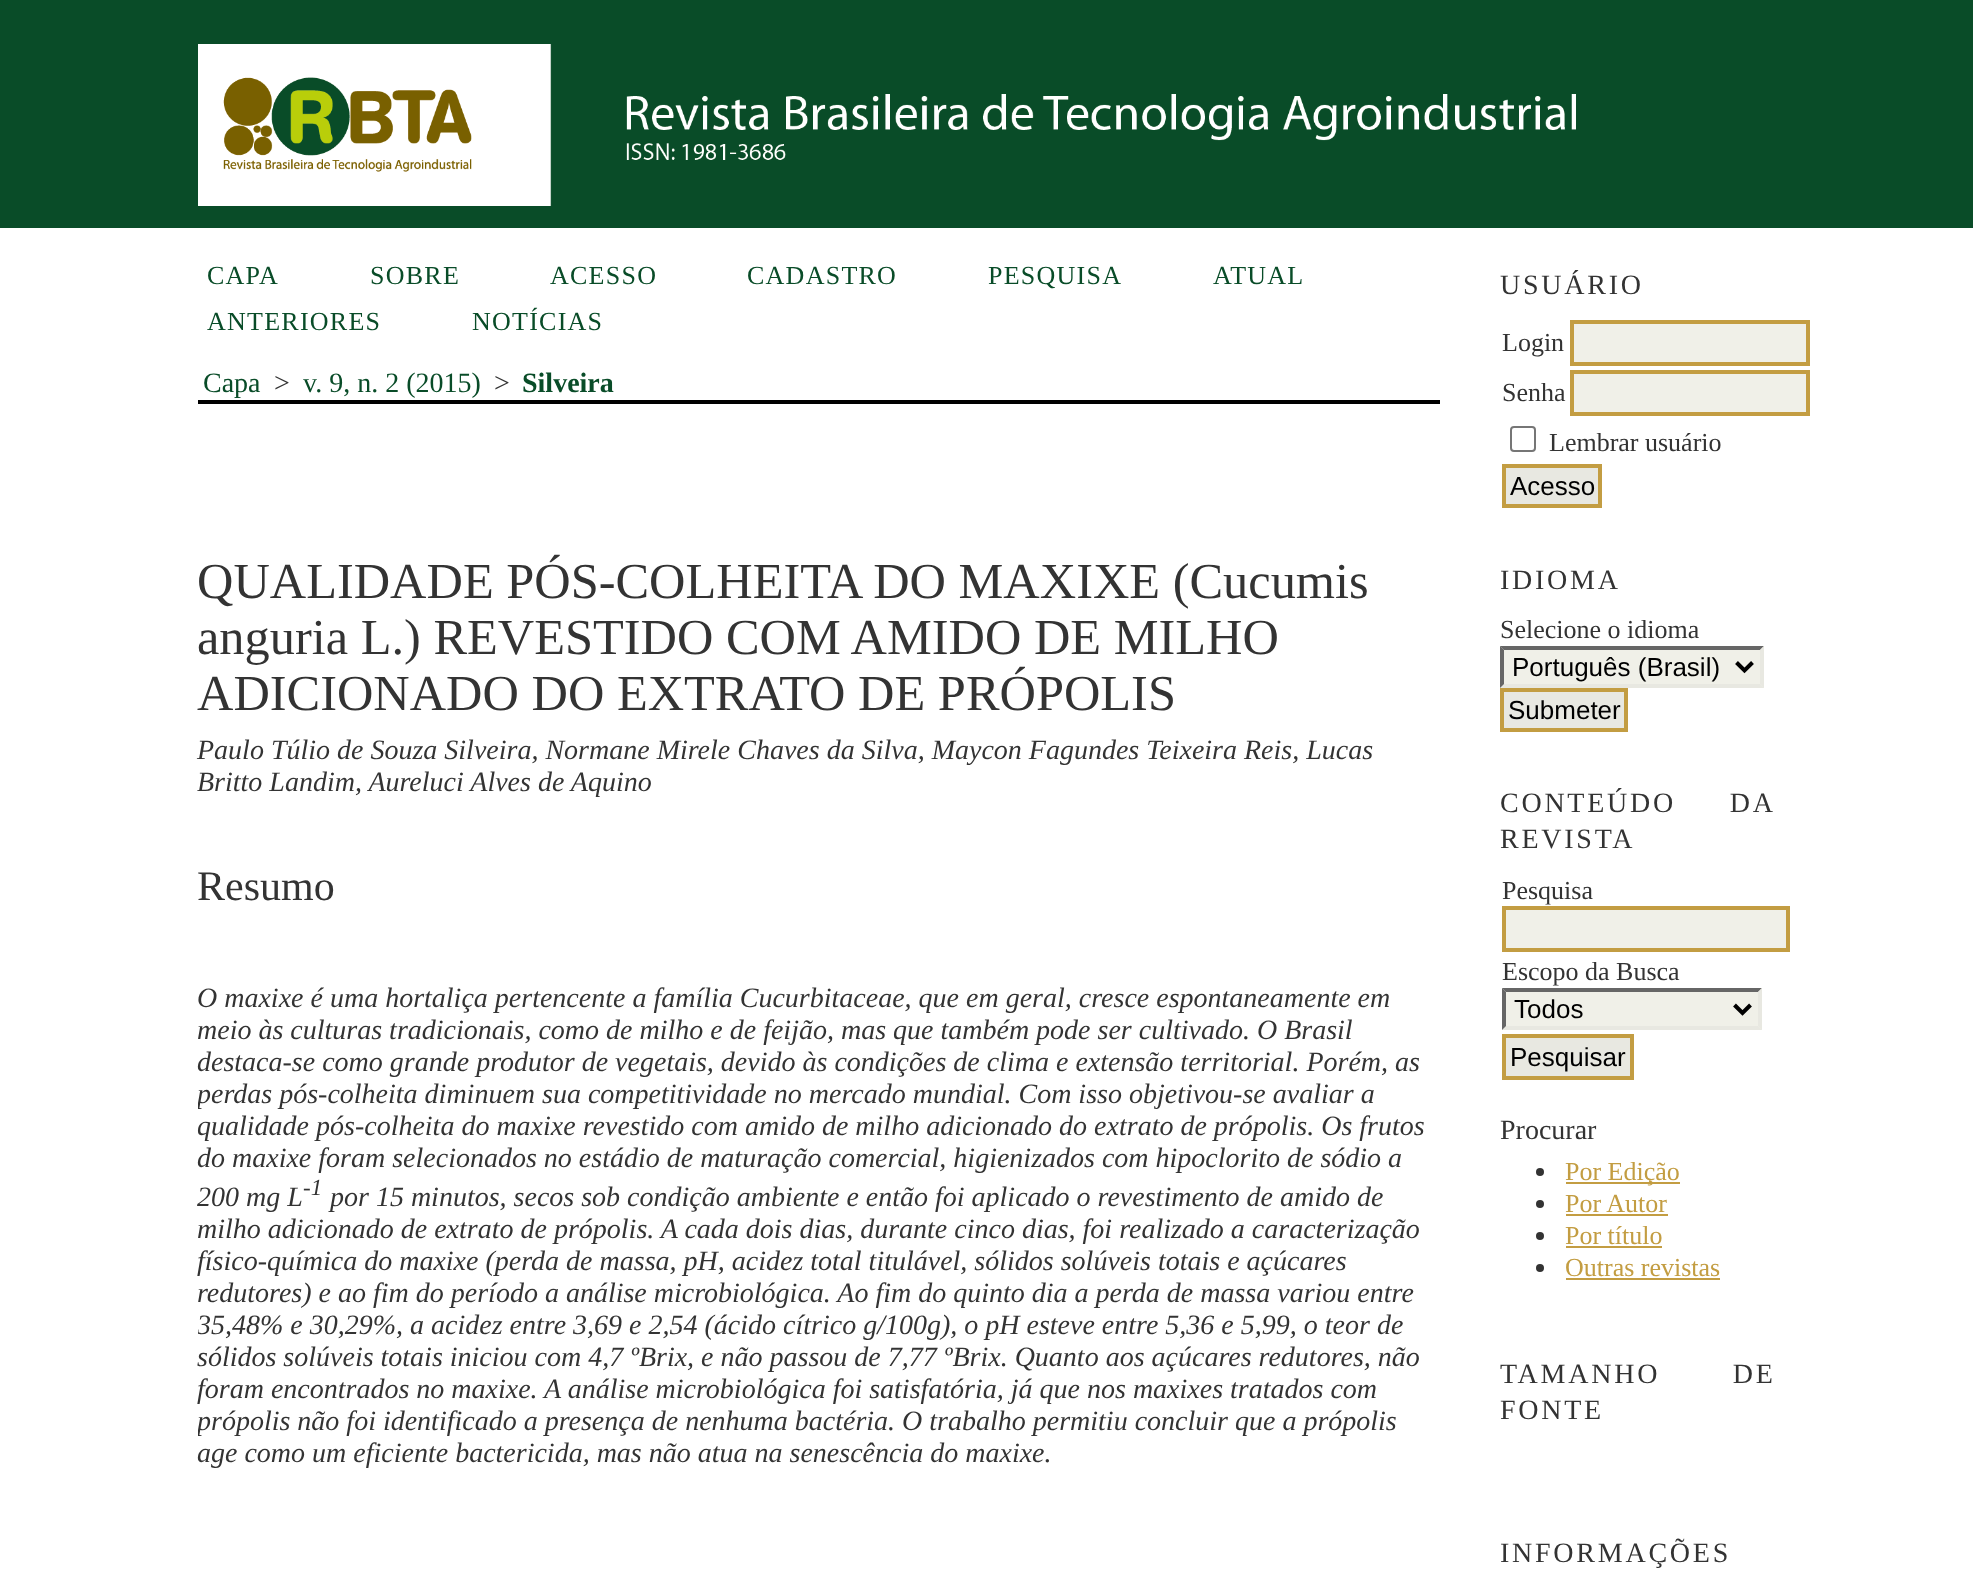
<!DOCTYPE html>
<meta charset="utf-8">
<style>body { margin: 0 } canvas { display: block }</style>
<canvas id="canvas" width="1973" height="1590"></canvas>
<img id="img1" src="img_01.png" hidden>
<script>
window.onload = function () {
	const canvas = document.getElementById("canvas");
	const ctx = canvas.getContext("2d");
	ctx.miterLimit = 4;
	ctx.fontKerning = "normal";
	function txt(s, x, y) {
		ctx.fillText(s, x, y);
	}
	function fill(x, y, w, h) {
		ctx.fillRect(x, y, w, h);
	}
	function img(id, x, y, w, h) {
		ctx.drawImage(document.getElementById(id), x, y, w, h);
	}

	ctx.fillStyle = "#FFFFFF";
	fill(0, 0, 1973, 1590);
	ctx.fillStyle = "#094C28";
	fill(0, 0, 1973, 228);
	img("img1", 198, 44, 1378, 162);
	ctx.fillStyle = "#000000";
	fill(198, 400, 1242, 4);
	ctx.fillStyle = "#F0F0E8";
	ctx.beginPath();
	ctx.rect(1572, 322, 236, 42);
	ctx.fill();
	ctx.strokeStyle = "#C39D42";
	ctx.lineWidth = 4;
	ctx.stroke();
	ctx.beginPath();
	ctx.rect(1572, 372, 236, 42);
	ctx.fill();
	ctx.stroke();
	ctx.beginPath();
	ctx.roundRect(1511, 427, 24, 24, 3);
	ctx.strokeStyle = "#767676";
	ctx.lineWidth = 2;
	ctx.stroke();
	ctx.fillStyle = "#E8E8E1";
	ctx.beginPath();
	ctx.rect(1504, 466, 96, 40);
	ctx.fill();
	ctx.strokeStyle = "#C39D42";
	ctx.lineWidth = 4;
	ctx.stroke();
	ctx.fillStyle = "#F0F0E8";
	fill(1500, 646, 264, 42);
	ctx.fillStyle = "#666666";
	ctx.beginPath();
	ctx.moveTo(1500, 646);
	ctx.lineTo(1764, 646);
	ctx.lineTo(1760, 650);
	ctx.lineTo(1504, 650);
	ctx.closePath();
	ctx.fill();
	ctx.fillStyle = "#E8E8E1";
	ctx.beginPath();
	ctx.moveTo(1764, 646);
	ctx.lineTo(1764, 688);
	ctx.lineTo(1760, 684);
	ctx.lineTo(1760, 650);
	ctx.closePath();
	ctx.fill();
	ctx.beginPath();
	ctx.moveTo(1764, 688);
	ctx.lineTo(1500, 688);
	ctx.lineTo(1504, 684);
	ctx.lineTo(1760, 684);
	ctx.closePath();
	ctx.fill();
	ctx.fillStyle = "#666666";
	ctx.beginPath();
	ctx.moveTo(1500, 688);
	ctx.lineTo(1500, 646);
	ctx.lineTo(1504, 650);
	ctx.lineTo(1504, 684);
	ctx.closePath();
	ctx.fill();
	ctx.beginPath();
	ctx.moveTo(1736.5, 662.5);
	ctx.lineTo(1744.5, 670.5);
	ctx.lineTo(1752.5, 662.5);
	ctx.strokeStyle = "#000000";
	ctx.stroke();
	ctx.fillStyle = "#E8E8E1";
	ctx.beginPath();
	ctx.rect(1502, 690, 124, 40);
	ctx.fill();
	ctx.strokeStyle = "#C39D42";
	ctx.stroke();
	ctx.fillStyle = "#F0F0E8";
	ctx.beginPath();
	ctx.rect(1504, 908, 284, 42);
	ctx.fill();
	ctx.stroke();
	fill(1502, 988, 260, 42);
	ctx.fillStyle = "#666666";
	ctx.beginPath();
	ctx.moveTo(1502, 988);
	ctx.lineTo(1762, 988);
	ctx.lineTo(1758, 992);
	ctx.lineTo(1506, 992);
	ctx.closePath();
	ctx.fill();
	ctx.fillStyle = "#E8E8E1";
	ctx.beginPath();
	ctx.moveTo(1762, 988);
	ctx.lineTo(1762, 1030);
	ctx.lineTo(1758, 1026);
	ctx.lineTo(1758, 992);
	ctx.closePath();
	ctx.fill();
	ctx.beginPath();
	ctx.moveTo(1762, 1030);
	ctx.lineTo(1502, 1030);
	ctx.lineTo(1506, 1026);
	ctx.lineTo(1758, 1026);
	ctx.closePath();
	ctx.fill();
	ctx.fillStyle = "#666666";
	ctx.beginPath();
	ctx.moveTo(1502, 1030);
	ctx.lineTo(1502, 988);
	ctx.lineTo(1506, 992);
	ctx.lineTo(1506, 1026);
	ctx.closePath();
	ctx.fill();
	ctx.beginPath();
	ctx.moveTo(1734.5, 1005);
	ctx.lineTo(1742.5, 1013);
	ctx.lineTo(1750.5, 1005);
	ctx.strokeStyle = "#000000";
	ctx.stroke();
	ctx.fillStyle = "#E8E8E1";
	ctx.beginPath();
	ctx.rect(1504, 1036, 128, 42);
	ctx.fill();
	ctx.strokeStyle = "#C39D42";
	ctx.stroke();
	ctx.fillStyle = "#333333";
	ctx.beginPath();
	ctx.arc(1540, 1172, 4, 0, Math.PI * 2);
	ctx.fill();
	ctx.fillStyle = "#C39D42";
	fill(1566, 1182, 114, 2);
	ctx.fillStyle = "#333333";
	ctx.beginPath();
	ctx.arc(1540, 1204, 4, 0, Math.PI * 2);
	ctx.fill();
	ctx.fillStyle = "#C39D42";
	fill(1566, 1214, 102, 2);
	ctx.fillStyle = "#333333";
	ctx.beginPath();
	ctx.arc(1540, 1236, 4, 0, Math.PI * 2);
	ctx.fill();
	ctx.fillStyle = "#C39D42";
	fill(1566, 1246, 96, 2);
	ctx.fillStyle = "#333333";
	ctx.beginPath();
	ctx.arc(1540, 1268, 4, 0, Math.PI * 2);
	ctx.fill();
	ctx.fillStyle = "#C39D42";
	fill(1566, 1278, 154, 2);
	ctx.letterSpacing = "1.25px";
	ctx.font = "26px Liberation Serif";
	ctx.fillStyle = "#094C28";
	txt("CAPA", 207, 284);
	txt("SOBRE", 370, 284);
	txt("ACESSO", 550, 284);
	txt("CADASTRO", 747, 284);
	txt("PESQUISA", 988, 284);
	txt("ATUAL", 1213, 284);
	txt("ANTERIORES", 207, 330);
	txt("NOTÍCIAS", 472, 330);
	ctx.letterSpacing = "0px";
	ctx.font = "28px Liberation Serif";
	txt("Capa", 203, 392);
	ctx.fillStyle = "#333333";
	txt(">", 274, 392);
	ctx.fillStyle = "#094C28";
	txt("v. 9, n. 2 (2015)", 303, 392);
	ctx.fillStyle = "#333333";
	txt(">", 494, 392);
	ctx.font = "bold 28px Liberation Serif";
	ctx.fillStyle = "#094C28";
	txt("Silveira", 522, 392);
	ctx.font = "50.4px Liberation Serif";
	ctx.fillStyle = "#333333";
	txt("QUALIDADE PÓS-COLHEITA DO MAXIXE (Cucumis", 197, 598);
	txt("anguria L.) REVESTIDO COM AMIDO DE MILHO", 197, 654);
	txt("ADICIONADO DO EXTRATO DE PRÓPOLIS", 197, 710);
	ctx.font = "italic 28px Liberation Serif";
	txt("Paulo Túlio de Souza Silveira, Normane Mirele Chaves da Silva, Maycon Fagundes Teixeira Reis, Lucas", 197, 759);
	txt("Britto Landim, Aureluci Alves de Aquino", 197, 791);
	ctx.font = "42px Liberation Serif";
	txt("Resumo", 197, 900);
	ctx.font = "italic 28px Liberation Serif";
	txt("O maxixe é uma hortaliça pertencente a família Cucurbitaceae, que em geral, cresce espontaneamente em", 197, 1007);
	txt("meio às culturas tradicionais, como de milho e de feijão, mas que também pode ser cultivado. O Brasil", 197, 1039);
	txt("destaca-se como grande produtor de vegetais, devido às condições de clima e extensão territorial. Porém, as", 197, 1071);
	ctx.save();
	ctx.beginPath();
	ctx.rect(198, 228, 1242, 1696);
	ctx.clip();
	txt("perdas pós-colheita diminuem sua competitividade no mercado mundial. Com isso objetivou-se avaliar a", 197, 1103);
	ctx.restore();
	txt("qualidade pós-colheita do maxixe revestido com amido de milho adicionado do extrato de própolis. Os frutos", 197, 1135);
	txt("do maxixe foram selecionados no estádio de maturação comercial, higienizados com hipoclorito de sódio a", 197, 1167);
	txt("200 mg L", 197, 1206);
	ctx.font = "italic 23px Liberation Serif";
	txt("-1", 303, 1195);
	ctx.font = "italic 28px Liberation Serif";
	txt("por 15 minutos, secos sob condição ambiente e então foi aplicado o revestimento de amido de", 330, 1206);
	txt("milho adicionado de extrato de própolis. A cada dois dias, durante cinco dias, foi realizado a caracterização", 197, 1238);
	txt("físico-química do maxixe (perda de massa, pH, acidez total titulável, sólidos solúveis totais e açúcares", 197, 1270);
	txt("redutores) e ao fim do período a análise microbiológica. Ao fim do quinto dia a perda de massa variou entre", 197, 1302);
	ctx.save();
	ctx.beginPath();
	ctx.rect(198, 228, 1242, 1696);
	ctx.clip();
	txt("35,48% e 30,29%, a acidez entre 3,69 e 2,54 (ácido cítrico g/100g), o pH esteve entre 5,36 e 5,99, o teor de", 197, 1334);
	ctx.restore();
	txt("sólidos solúveis totais iniciou com 4,7 ºBrix, e não passou de 7,77 ºBrix. Quanto aos açúcares redutores, não", 197, 1366);
	txt("foram encontrados no maxixe. A análise microbiológica foi satisfatória, já que nos maxixes tratados com", 197, 1398);
	ctx.save();
	ctx.beginPath();
	ctx.rect(198, 228, 1242, 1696);
	ctx.clip();
	txt("própolis não foi identificado a presença de nenhuma bactéria. O trabalho permitiu concluir que a própolis", 197, 1430);
	ctx.restore();
	txt("age como um eficiente bactericida, mas não atua na senescência do maxixe.", 197, 1462);
	ctx.letterSpacing = "2.75px";
	ctx.font = "28px Liberation Serif";
	txt("USUÁRIO", 1500, 294);
	ctx.letterSpacing = "0px";
	ctx.font = "26px Liberation Serif";
	txt("Login", 1502, 351);
	txt("Senha", 1502, 401);
	txt("Lembrar usuário", 1549, 451);
	ctx.font = "26px Liberation Sans";
	ctx.fillStyle = "#000000";
	txt("Acesso", 1510, 495);
	ctx.letterSpacing = "2.75px";
	ctx.font = "28px Liberation Serif";
	ctx.fillStyle = "#333333";
	txt("IDIOMA", 1500, 589);
	ctx.letterSpacing = "0px";
	ctx.font = "26px Liberation Serif";
	txt("Selecione o idioma", 1500, 638);
	ctx.font = "26px Liberation Sans";
	ctx.fillStyle = "#000000";
	txt("Português (Brasil)", 1512, 676);
	txt("Submeter", 1508, 719);
	ctx.letterSpacing = "2.75px";
	ctx.wordSpacing = "44px";
	ctx.font = "28px Liberation Serif";
	ctx.fillStyle = "#333333";
	txt("CONTEÚDO DA", 1500, 812);
	ctx.wordSpacing = "0px";
	txt("REVISTA", 1500, 848);
	ctx.letterSpacing = "0px";
	ctx.font = "26px Liberation Serif";
	txt("Pesquisa", 1502, 899);
	txt("Escopo da Busca", 1502, 980);
	ctx.font = "26px Liberation Sans";
	ctx.fillStyle = "#000000";
	txt("Todos", 1514, 1018);
	txt("Pesquisar", 1510, 1066);
	ctx.font = "28px Liberation Serif";
	ctx.fillStyle = "#333333";
	txt("Procurar", 1500, 1139);
	ctx.font = "26px Liberation Serif";
	ctx.fillStyle = "#C39D42";
	txt("Por Edição", 1565, 1180);
	txt("Por Autor", 1565, 1212);
	txt("Por título", 1565, 1244);
	txt("Outras revistas", 1565, 1276);
	ctx.letterSpacing = "2.75px";
	ctx.wordSpacing = "63px";
	ctx.font = "28px Liberation Serif";
	ctx.fillStyle = "#333333";
	txt("TAMANHO DE", 1500, 1383);
	ctx.wordSpacing = "0px";
	txt("FONTE", 1500, 1419);
	txt("INFORMAÇÕES", 1500, 1562);
};
</script>
